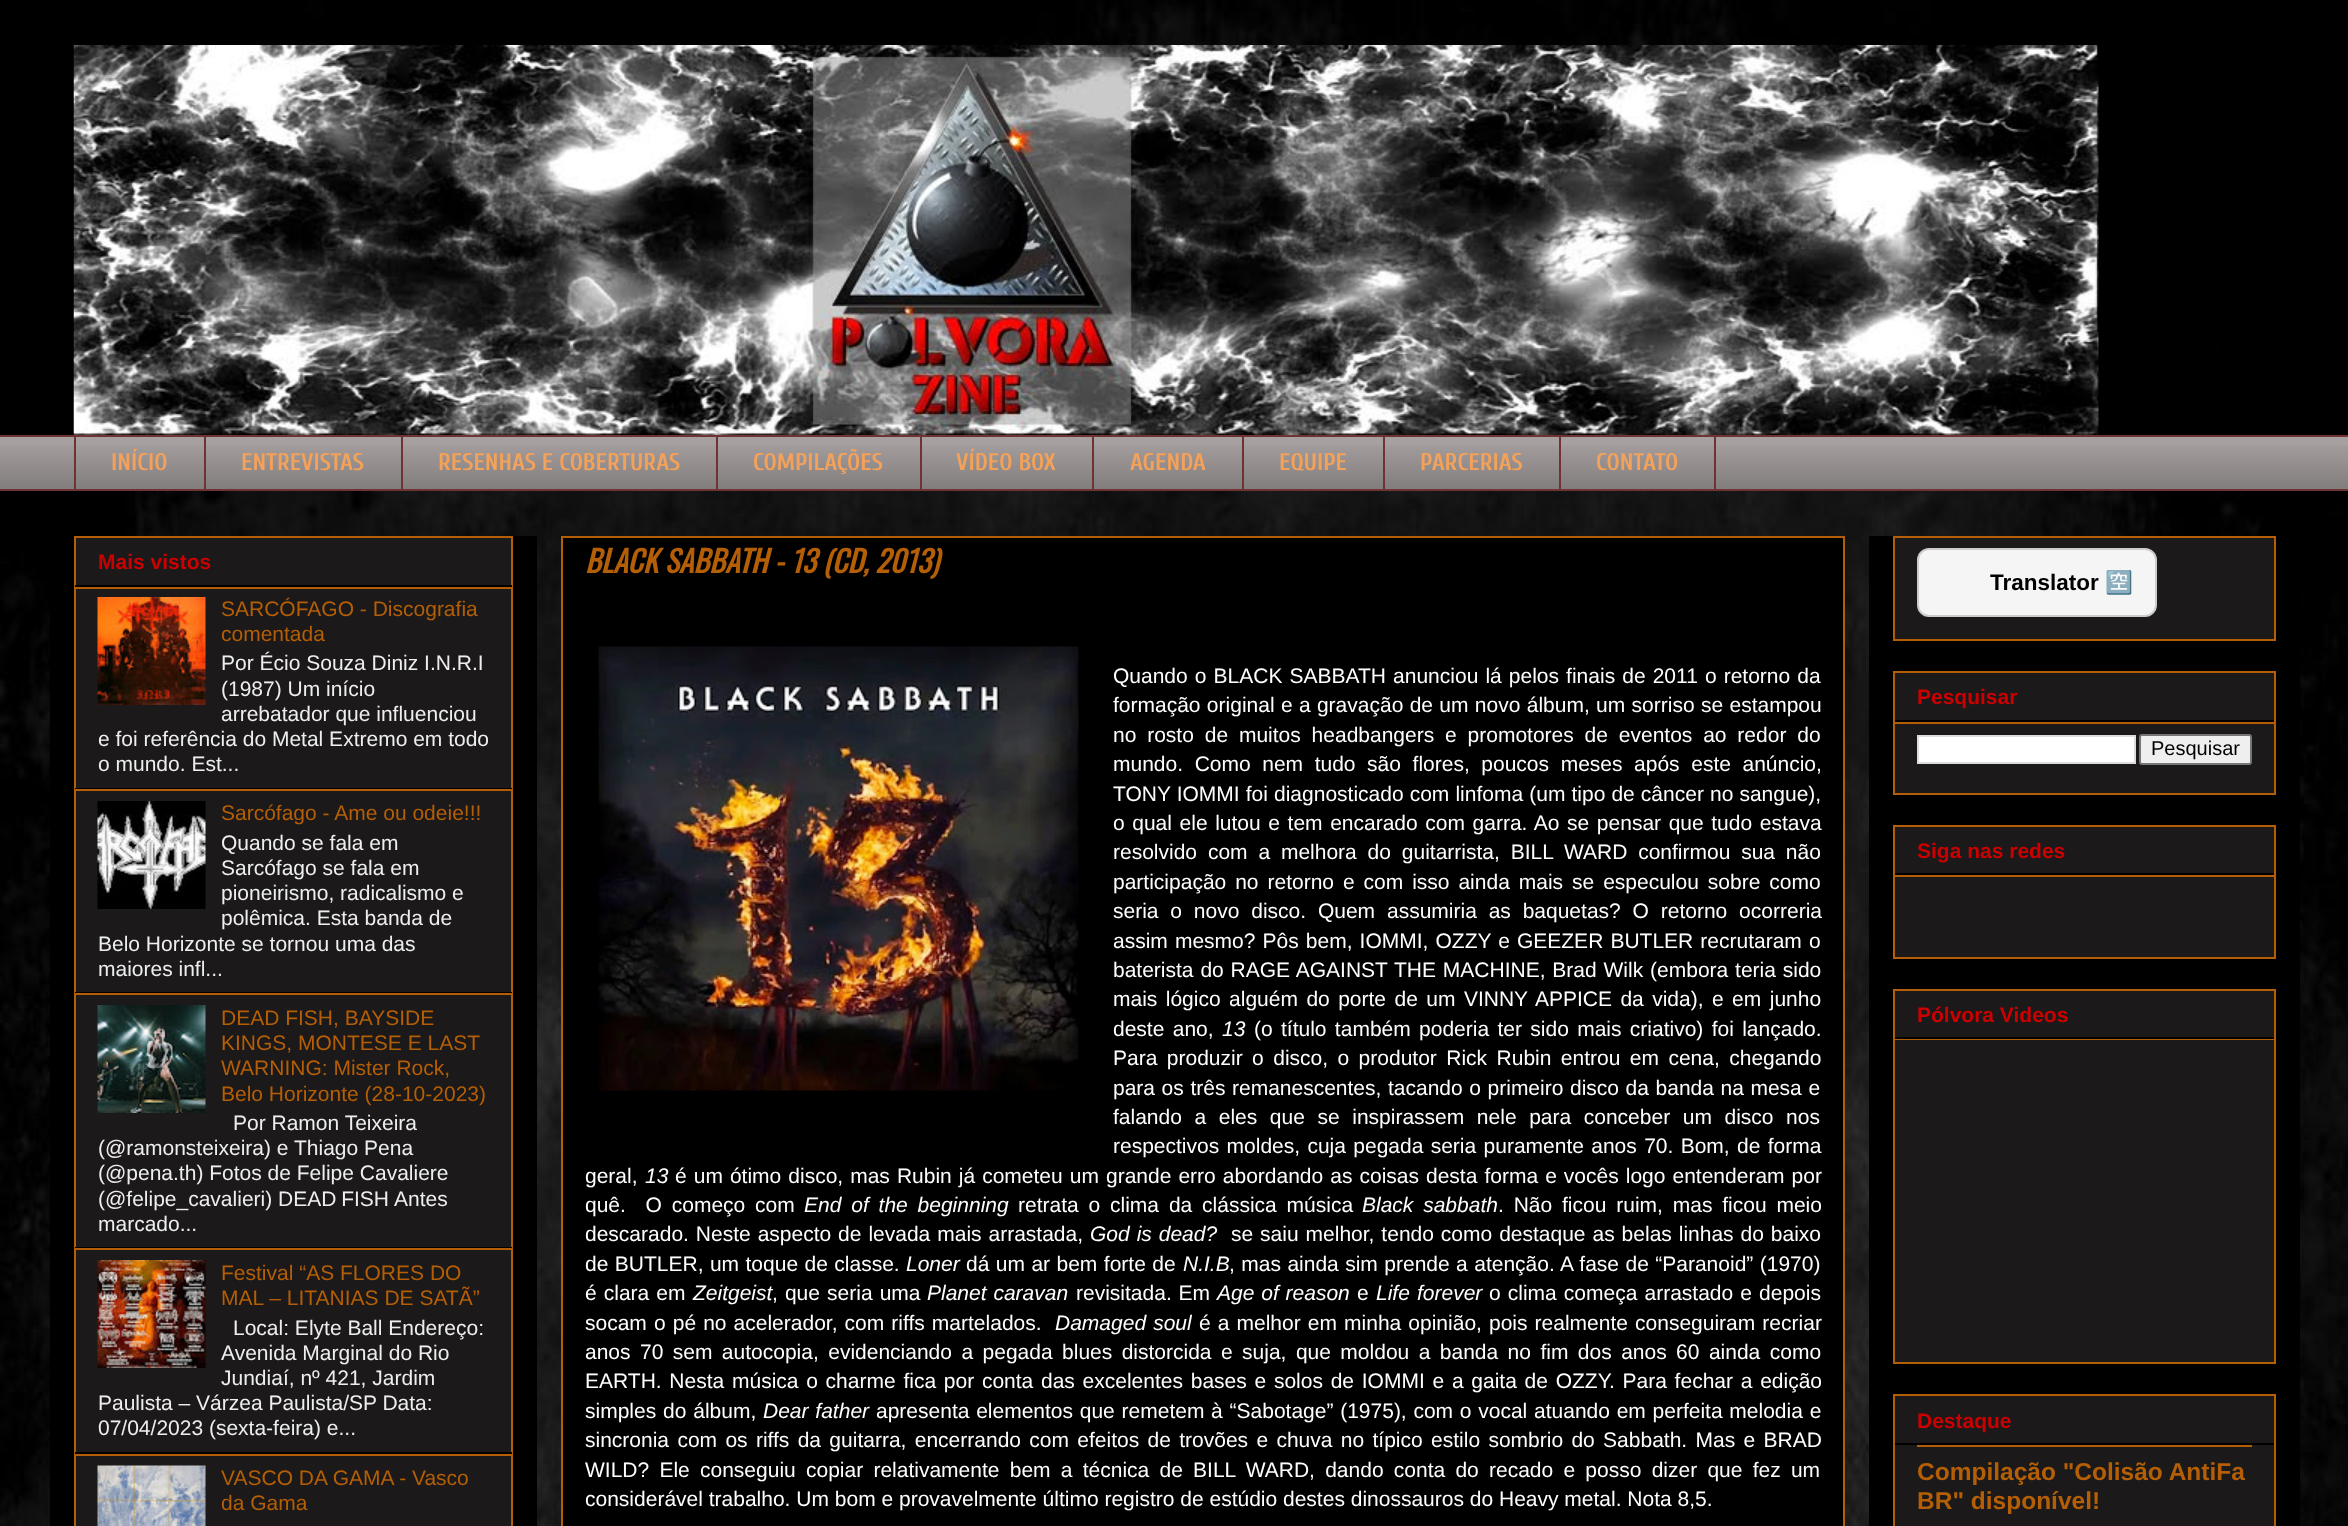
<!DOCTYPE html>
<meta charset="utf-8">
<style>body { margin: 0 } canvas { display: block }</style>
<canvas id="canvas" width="2348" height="1526"></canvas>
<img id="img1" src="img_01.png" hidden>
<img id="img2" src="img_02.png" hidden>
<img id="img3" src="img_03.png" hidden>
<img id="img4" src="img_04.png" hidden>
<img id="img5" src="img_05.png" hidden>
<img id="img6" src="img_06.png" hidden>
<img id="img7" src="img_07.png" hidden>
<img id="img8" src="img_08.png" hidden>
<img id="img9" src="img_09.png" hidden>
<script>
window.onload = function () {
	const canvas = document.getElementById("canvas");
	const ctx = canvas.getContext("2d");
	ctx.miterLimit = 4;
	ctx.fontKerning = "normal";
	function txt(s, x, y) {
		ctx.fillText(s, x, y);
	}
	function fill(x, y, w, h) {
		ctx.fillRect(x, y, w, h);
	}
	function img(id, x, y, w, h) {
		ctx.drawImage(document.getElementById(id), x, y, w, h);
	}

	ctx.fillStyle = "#FFFFFF";
	fill(0, 0, 2348, 1526);
	img("img1", 0, 0, 2348, 1526);
	ctx.fillStyle = "#000000";
	fill(122, 45, 2093, 390);
	img("img2", 73, 45, 2026, 390);
	ctx.fillStyle = "#A7A0A0";
	fill(0, 437, 2348, 52);
	img("img3", 0, 445, 2348, 44);
	ctx.fillStyle = "#703333";
	fill(0, 435, 2348, 2);
	fill(74, 435, 2, 56);
	fill(204, 435, 2, 56);
	fill(401, 435, 2, 56);
	fill(716, 435, 2, 56);
	fill(920, 435, 2, 56);
	fill(1092, 435, 2, 56);
	fill(1242, 435, 2, 56);
	fill(1383, 435, 2, 56);
	ctx.strokeStyle = "#703333";
	ctx.lineWidth = 2;
	ctx.strokeRect(1560, 436, 155, 54);
	fill(0, 489, 2348, 2);
	ctx.fillStyle = "rgba(0, 0, 0, 0.2)";
	ctx.filter = "blur(15px)";
	ctx.beginPath();
	ctx.rect(561, 536, 1284, 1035);
	ctx.fill();
	ctx.filter = "none";
	ctx.fillStyle = "#000000";
	fill(50, 536, 487, 990);
	ctx.fillStyle = "#1B1919";
	ctx.beginPath();
	ctx.rect(75, 537, 437, 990);
	ctx.fill();
	ctx.strokeStyle = "#B45F06";
	ctx.stroke();
	ctx.fillStyle = "#000000";
	fill(75, 585, 437, 2);
	ctx.fillStyle = "#B45F06";
	fill(75, 587, 437, 2);
	ctx.fillStyle = "#000000";
	fill(75, 788, 437, 1);
	img("img4", 97, 597, 109, 108);
	ctx.fillStyle = "#B45F06";
	fill(75, 789, 437, 2);
	ctx.fillStyle = "#000000";
	fill(75, 992, 437, 1);
	img("img5", 97, 801, 109, 108);
	ctx.fillStyle = "#B45F06";
	fill(75, 993, 437, 2);
	ctx.fillStyle = "#000000";
	fill(75, 1247, 437, 1);
	img("img6", 97, 1005, 109, 108);
	ctx.fillStyle = "#B45F06";
	fill(75, 1248, 437, 2);
	ctx.fillStyle = "#000000";
	fill(75, 1452, 437, 2);
	img("img7", 97, 1260, 109, 108);
	ctx.fillStyle = "#B45F06";
	fill(75, 1454, 437, 2);
	img("img8", 97, 1465, 109, 61);
	ctx.fillStyle = "#000000";
	ctx.beginPath();
	ctx.rect(562, 537, 1282, 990);
	ctx.fill();
	ctx.stroke();
	img("img9", 598, 646, 481, 445);
	fill(1869, 536, 431, 990);
	ctx.fillStyle = "#1B1919";
	ctx.beginPath();
	ctx.rect(1894, 537, 381, 103);
	ctx.fill();
	ctx.stroke();
	ctx.fillStyle = "#F5F5F5";
	ctx.beginPath();
	ctx.roundRect(1918, 549, 238, 67, 11);
	ctx.fill();
	ctx.strokeStyle = "#CCCCCC";
	ctx.stroke();
	ctx.fillStyle = "#1B1919";
	ctx.beginPath();
	ctx.rect(1894, 672, 381, 122);
	ctx.fill();
	ctx.strokeStyle = "#B45F06";
	ctx.stroke();
	ctx.fillStyle = "#000000";
	fill(1895, 720, 379, 2);
	ctx.fillStyle = "#B45F06";
	fill(1895, 722, 379, 2);
	ctx.fillStyle = "#FFFFFF";
	ctx.beginPath();
	ctx.rect(1918, 736, 217, 27);
	ctx.fill();
	ctx.strokeStyle = "#DDDDDD";
	ctx.stroke();
	ctx.fillStyle = "#EFEFEF";
	ctx.beginPath();
	ctx.roundRect(2140, 735, 111, 29, 2);
	ctx.fill();
	ctx.strokeStyle = "#767676";
	ctx.stroke();
	ctx.fillStyle = "#1B1919";
	ctx.beginPath();
	ctx.rect(1894, 826, 381, 132);
	ctx.fill();
	ctx.strokeStyle = "#B45F06";
	ctx.stroke();
	ctx.fillStyle = "#000000";
	fill(1895, 873, 379, 2);
	ctx.fillStyle = "#B45F06";
	fill(1895, 875, 379, 2);
	ctx.fillStyle = "#1B1919";
	ctx.beginPath();
	ctx.rect(1894, 990, 381, 373);
	ctx.fill();
	ctx.stroke();
	ctx.fillStyle = "#000000";
	fill(1895, 1037, 379, 2);
	ctx.fillStyle = "#B45F06";
	fill(1895, 1039, 379, 1);
	ctx.fillStyle = "#1B1919";
	ctx.beginPath();
	ctx.rect(1894, 1395, 381, 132);
	ctx.fill();
	ctx.stroke();
	ctx.fillStyle = "#000000";
	fill(1895, 1443, 379, 2);
	ctx.fillStyle = "#B45F06";
	fill(1917, 1445, 335, 2);
	ctx.font = "bold 24px Cuprum";
	ctx.fillStyle = "#F4A259";
	txt("INÍCIO", 111, 470);
	txt("ENTREVISTAS", 241, 470);
	txt("RESENHAS E COBERTURAS", 438, 470);
	txt("COMPILAÇÕES", 753, 470);
	txt("VÍDEO BOX", 956, 470);
	txt("AGENDA", 1130, 470);
	txt("EQUIPE", 1279, 470);
	txt("PARCERIAS", 1420, 470);
	txt("CONTATO", 1596, 470);
	ctx.font = "bold 21px Liberation Sans";
	ctx.fillStyle = "#CC0000";
	txt("Mais vistos", 98, 569);
	ctx.font = "21px Liberation Sans";
	ctx.fillStyle = "#B45F06";
	txt("SARCÓFAGO - Discografia", 221, 616);
	txt("comentada", 221, 641);
	ctx.fillStyle = "#EEEEEE";
	txt("Por Écio Souza Diniz I.N.R.I", 221, 670);
	txt("(1987) Um início", 221, 696);
	txt("arrebatador que influenciou", 221, 721);
	txt("e foi referência do Metal Extremo em todo", 98, 746);
	txt("o mundo. Est...", 98, 771);
	ctx.fillStyle = "#B45F06";
	txt("Sarcófago - Ame ou odeie!!!", 221, 820);
	ctx.fillStyle = "#EEEEEE";
	txt("Quando se fala em", 221, 850);
	txt("Sarcófago se fala em", 221, 875);
	txt("pioneirismo, radicalismo e", 221, 900);
	txt("polêmica. Esta banda de", 221, 925);
	txt("Belo Horizonte se tornou uma das", 98, 951);
	txt("maiores infl...", 98, 976);
	ctx.fillStyle = "#B45F06";
	txt("DEAD FISH, BAYSIDE", 221, 1025);
	txt("KINGS, MONTESE E LAST", 221, 1050);
	txt("WARNING: Mister Rock,", 221, 1075);
	txt("Belo Horizonte (28-10-2023)", 221, 1101);
	ctx.fillStyle = "#EEEEEE";
	txt("Por Ramon Teixeira", 233, 1130);
	txt("(@ramonsteixeira) e Thiago Pena", 98, 1155);
	txt("(@pena.th) Fotos de Felipe Cavaliere", 98, 1180);
	txt("(@felipe_cavalieri)", 98, 1206);
	ctx.wordSpacing = "-1px";
	txt("DEAD FISH", 278, 1206);
	ctx.wordSpacing = "0px";
	txt("Antes", 394, 1206);
	txt("marcado...", 98, 1231);
	ctx.fillStyle = "#B45F06";
	txt("Festival “AS FLORES DO", 221, 1280);
	txt("MAL – LITANIAS DE SATÃ”", 221, 1305);
	ctx.fillStyle = "#EEEEEE";
	txt("Local: Elyte Ball Endereço:", 233, 1335);
	txt("Avenida Marginal do Rio", 221, 1360);
	txt("Jundiaí, nº 421, Jardim", 221, 1385);
	txt("Paulista – Várzea Paulista/SP Data:", 98, 1410);
	txt("07/04/2023 (sexta-feira) e...", 98, 1435);
	ctx.fillStyle = "#B45F06";
	txt("VASCO DA GAMA - Vasco", 221, 1485);
	txt("da Gama", 221, 1510);
	ctx.font = "italic bold 30px Oswald";
	txt("BLACK SABBATH - 13 (CD, 2013)", 585, 573);
	ctx.wordSpacing = "1.25px";
	ctx.font = "21px Liberation Sans";
	ctx.fillStyle = "#FFFFFF";
	txt("Quando o BLACK SABBATH anunciou lá pelos finais de 2011 o retorno da", 1113, 683);
	ctx.wordSpacing = "0.5px";
	txt("formação original e a gravação de um novo álbum, um sorriso se estampou", 1113, 712);
	ctx.wordSpacing = "5px";
	txt("no rosto de muitos headbangers e promotores de eventos ao redor do", 1113, 742);
	ctx.wordSpacing = "5.75px";
	txt("mundo. Como nem tudo são flores, poucos meses após este anúncio,", 1113, 771);
	ctx.wordSpacing = "0.25px";
	txt("TONY IOMMI foi diagnosticado com linfoma (um tipo de câncer no sangue),", 1113, 801);
	ctx.wordSpacing = "1.75px";
	txt("o qual ele lutou e tem encarado com garra. Ao se pensar que tudo estava", 1113, 830);
	ctx.wordSpacing = "5px";
	txt("resolvido com a melhora do guitarrista, BILL WARD confirmou sua não", 1113, 859);
	ctx.wordSpacing = "3.1px";
	txt("participação no retorno e com isso ainda mais se especulou sobre como", 1113, 889);
	ctx.wordSpacing = "6px";
	txt("seria o novo disco. Quem assumiria as baquetas? O retorno ocorreria", 1113, 918);
	ctx.wordSpacing = "1.25px";
	txt("assim mesmo? Pôs bem, IOMMI, OZZY e GEEZER BUTLER recrutaram o", 1113, 948);
	ctx.wordSpacing = "1px";
	txt("baterista do RAGE AGAINST THE MACHINE, Brad Wilk (embora teria sido", 1113, 977);
	ctx.wordSpacing = "2.6px";
	txt("mais lógico alguém do porte de um VINNY APPICE da vida), e em junho", 1113, 1006);
	ctx.wordSpacing = "2.5px";
	txt("deste ano,", 1113, 1036);
	ctx.wordSpacing = "0px";
	ctx.font = "italic 21px Liberation Sans";
	txt("13", 1222, 1036);
	ctx.wordSpacing = "2.5px";
	ctx.font = "21px Liberation Sans";
	txt("(o título também poderia ter sido mais criativo) foi lançado.", 1254, 1036);
	ctx.wordSpacing = "3.6px";
	txt("Para produzir o disco, o produtor Rick Rubin entrou em cena, chegando", 1113, 1065);
	ctx.wordSpacing = "0.75px";
	txt("para os três remanescentes, tacando o primeiro disco da banda na mesa e", 1113, 1095);
	ctx.wordSpacing = "6.75px";
	txt("falando a eles que se inspirassem nele para conceber um disco nos", 1113, 1124);
	ctx.wordSpacing = "1.5px";
	txt("respectivos moldes, cuja pegada seria puramente anos 70. Bom, de forma", 1113, 1153);
	ctx.wordSpacing = "0px";
	txt("geral,", 585, 1183);
	ctx.font = "italic 21px Liberation Sans";
	txt("13", 645, 1183);
	ctx.wordSpacing = "1.2px";
	ctx.font = "21px Liberation Sans";
	txt("é um ótimo disco, mas Rubin já cometeu um grande erro abordando as coisas desta forma e vocês logo entenderam por", 675, 1183);
	ctx.wordSpacing = "4px";
	txt("quê.  O começo com", 585, 1212);
	ctx.font = "italic 21px Liberation Sans";
	txt("End of the beginning", 804, 1212);
	ctx.font = "21px Liberation Sans";
	txt("retrata o clima da clássica música", 1018, 1212);
	ctx.font = "italic 21px Liberation Sans";
	txt("Black sabbath", 1362, 1212);
	ctx.font = "21px Liberation Sans";
	txt(". Não ficou ruim, mas ficou meio", 1498, 1212);
	ctx.wordSpacing = "1.1px";
	txt("descarado. Neste aspecto de levada mais arrastada,", 585, 1241);
	ctx.font = "italic 21px Liberation Sans";
	txt("God is dead?", 1090, 1241);
	ctx.font = "21px Liberation Sans";
	txt("se saiu melhor, tendo como destaque as belas linhas do baixo", 1231, 1241);
	ctx.wordSpacing = "0.6px";
	txt("de BUTLER, um toque de classe.", 585, 1271);
	ctx.wordSpacing = "0px";
	ctx.font = "italic 21px Liberation Sans";
	txt("Loner", 906, 1271);
	ctx.wordSpacing = "0.6px";
	ctx.font = "21px Liberation Sans";
	txt("dá um ar bem forte de", 966, 1271);
	ctx.wordSpacing = "0px";
	ctx.font = "italic 21px Liberation Sans";
	txt("N.I.B", 1183, 1271);
	ctx.wordSpacing = "0.6px";
	ctx.font = "21px Liberation Sans";
	txt(", mas ainda sim prende a atenção. A fase de “Paranoid” (1970)", 1229, 1271);
	ctx.wordSpacing = "1.25px";
	txt("é clara em", 585, 1300);
	ctx.wordSpacing = "0px";
	ctx.font = "italic 21px Liberation Sans";
	txt("Zeitgeist", 693, 1300);
	ctx.wordSpacing = "1.25px";
	ctx.font = "21px Liberation Sans";
	txt(", que seria uma", 772, 1300);
	ctx.wordSpacing = "1px";
	ctx.font = "italic 21px Liberation Sans";
	txt("Planet caravan", 927, 1300);
	ctx.font = "21px Liberation Sans";
	txt("revisitada. Em", 1076, 1300);
	ctx.font = "italic 21px Liberation Sans";
	txt("Age of reason", 1217, 1300);
	ctx.wordSpacing = "0px";
	ctx.font = "21px Liberation Sans";
	txt("e", 1357, 1300);
	ctx.wordSpacing = "1.25px";
	ctx.font = "italic 21px Liberation Sans";
	txt("Life forever", 1376, 1300);
	ctx.font = "21px Liberation Sans";
	txt("o clima começa arrastado e depois", 1489, 1300);
	txt("socam o pé no acelerador, com riffs martelados.", 585, 1330);
	ctx.font = "italic 21px Liberation Sans";
	txt("Damaged soul", 1055, 1330);
	ctx.font = "21px Liberation Sans";
	txt("é a melhor em minha opinião, pois realmente conseguiram recriar", 1199, 1330);
	ctx.wordSpacing = "3.6px";
	txt("anos 70 sem autocopia, evidenciando a pegada blues distorcida e suja, que moldou a banda no fim dos anos 60 ainda como", 585, 1359);
	ctx.wordSpacing = "1.9px";
	txt("EARTH. Nesta música o charme fica por conta das excelentes bases e solos de IOMMI e a gaita de OZZY. Para fechar a edição", 585, 1388);
	ctx.wordSpacing = "1px";
	txt("simples do álbum,", 585, 1418);
	ctx.font = "italic 21px Liberation Sans";
	txt("Dear father", 763, 1418);
	ctx.wordSpacing = "0.9px";
	ctx.font = "21px Liberation Sans";
	txt("apresenta elementos que remetem à “Sabotage” (1975), com o vocal atuando em perfeita melodia e", 876, 1418);
	ctx.wordSpacing = "2.5px";
	txt("sincronia com os riffs da guitarra, encerrando com efeitos de trovões e chuva no típico estilo sombrio do Sabbath. Mas e BRAD", 585, 1447);
	ctx.wordSpacing = "4.4px";
	txt("WILD? Ele conseguiu copiar relativamente bem a técnica de BILL WARD, dando conta do recado e posso dizer que fez um", 585, 1477);
	ctx.wordSpacing = "0px";
	txt("considerável trabalho. Um bom e provavelmente último registro de estúdio destes dinossauros do Heavy metal. Nota 8,5.", 585, 1506);
	ctx.font = "bold 22.5px Liberation Sans";
	ctx.fillStyle = "#000000";
	txt("Translator", 1990, 590);
	ctx.font = "bold 22.5px Noto Color Emoji";
	txt("🈳", 2105, 590);
	ctx.font = "bold 21px Liberation Sans";
	ctx.fillStyle = "#CC0000";
	txt("Pesquisar", 1917, 704);
	ctx.font = "20px Liberation Sans";
	ctx.fillStyle = "#000000";
	txt("Pesquisar", 2151, 755);
	ctx.font = "bold 21px Liberation Sans";
	ctx.fillStyle = "#CC0000";
	txt("Siga nas redes", 1917, 858);
	txt("Pólvora Videos", 1917, 1022);
	txt("Destaque", 1917, 1428);
	ctx.font = "bold 24.5px Liberation Sans";
	ctx.fillStyle = "#B45F06";
	txt("Compilação \"Colisão AntiFa", 1917, 1480);
	txt("BR\" disponível!", 1917, 1509);
};
</script>
